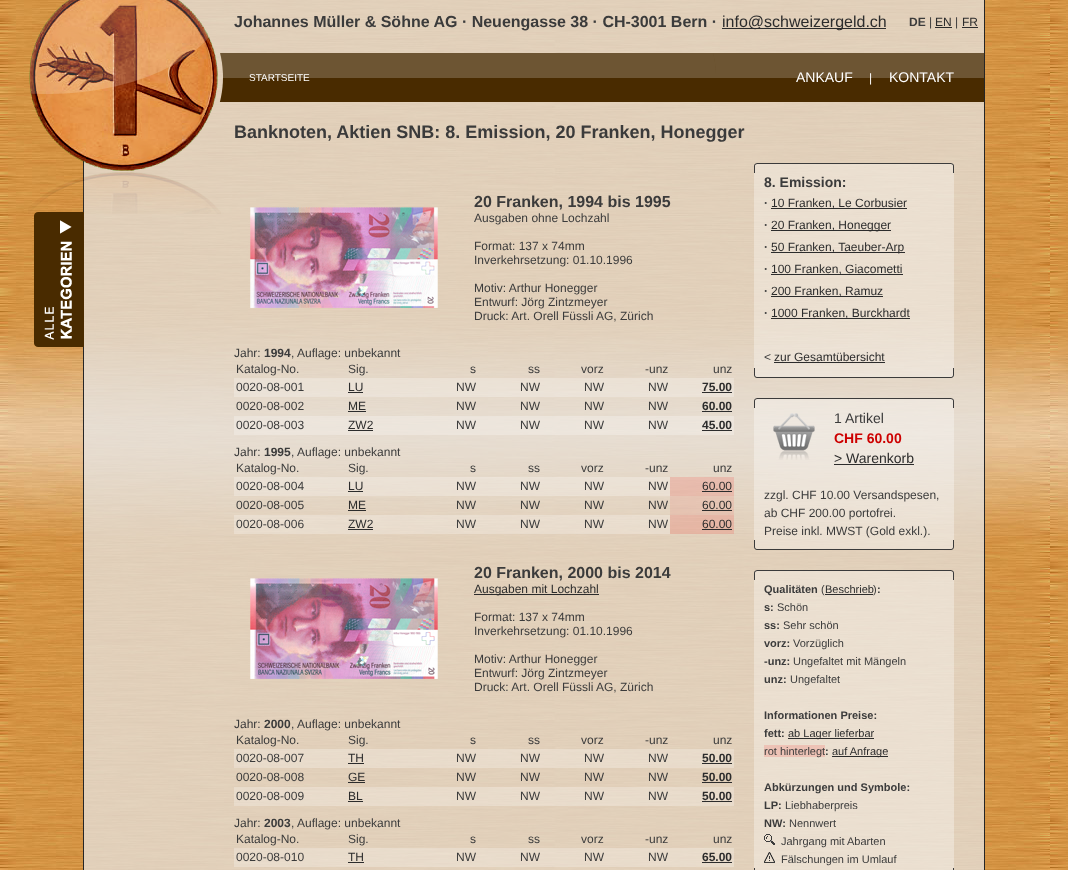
<!DOCTYPE html>
<meta charset="utf-8">
<style>body { margin: 0 } canvas { display: block }</style>
<canvas id="canvas" width="1068" height="870"></canvas>
<img id="img1" src="img_01.png" hidden>
<img id="img2" src="img_03.png" hidden>
<img id="img3" src="img_02.png" hidden>
<img id="img4" src="img_04.png" hidden>
<img id="img5" src="img_05.png" hidden>
<img id="img6" src="img_06.png" hidden>
<img id="img7" src="img_07.png" hidden>
<img id="img8" src="img_08.png" hidden>
<img id="img9" src="img_09.png" hidden>
<img id="img10" src="img_10.png" hidden>
<img id="img11" src="img_11.png" hidden>
<img id="img12" src="img_12.png" hidden>
<img id="img13" src="img_13.png" hidden>
<img id="img14" src="img_14.png" hidden>
<img id="img15" src="img_15.png" hidden>
<script>
window.onload = function () {
	const canvas = document.getElementById("canvas");
	const ctx = canvas.getContext("2d");
	ctx.miterLimit = 4;
	ctx.fontKerning = "normal";
	function txt(s, x, y) {
		ctx.fillText(s, x, y);
	}
	function fill(x, y, w, h) {
		ctx.fillRect(x, y, w, h);
	}
	function img(id, x, y, w, h) {
		ctx.drawImage(document.getElementById(id), x, y, w, h);
	}

	ctx.fillStyle = "#FFFFFF";
	fill(0, 0, 1068, 870);
	img("img1", 0, 0, 1068, 870);
	ctx.fillStyle = "rgba(230, 230, 230, 0.73)";
	fill(84, 0, 900, 870);
	ctx.fillStyle = "#262626";
	fill(984, 0, 1, 870);
	fill(83, 161, 1, 709);
	img("img2", 219, 53, 765, 49);
	img("img3", 28, 0, 193, 214);
	ctx.fillStyle = "#2C2C2C";
	fill(722, 28, 164, 1);
	fill(935, 27, 17, 1);
	fill(962, 27, 16, 1);
	img("img4", 34, 212, 50, 135);
	img("img5", 250, 207, 188, 101);
	ctx.fillStyle = "rgba(255, 255, 255, 0.25)";
	fill(234, 378, 112, 19);
	fill(346, 378, 34, 19);
	ctx.fillStyle = "#2C2C2C";
	fill(348, 392, 15, 1);
	ctx.fillStyle = "rgba(255, 255, 255, 0.25)";
	fill(380, 378, 34, 19);
	fill(414, 378, 64, 19);
	fill(478, 378, 64, 19);
	fill(542, 378, 64, 19);
	fill(606, 378, 64, 19);
	fill(670, 378, 64, 19);
	ctx.fillStyle = "#2C2C2C";
	fill(702, 392, 30, 1);
	fill(348, 411, 18, 1);
	fill(702, 411, 30, 1);
	ctx.fillStyle = "rgba(255, 255, 255, 0.25)";
	fill(234, 416, 112, 19);
	fill(346, 416, 34, 19);
	ctx.fillStyle = "#2C2C2C";
	fill(348, 430, 25, 1);
	ctx.fillStyle = "rgba(255, 255, 255, 0.25)";
	fill(380, 416, 34, 19);
	fill(414, 416, 64, 19);
	fill(478, 416, 64, 19);
	fill(542, 416, 64, 19);
	fill(606, 416, 64, 19);
	fill(670, 416, 64, 19);
	ctx.fillStyle = "#2C2C2C";
	fill(702, 430, 30, 1);
	ctx.fillStyle = "rgba(255, 255, 255, 0.25)";
	fill(234, 477, 112, 19);
	fill(346, 477, 34, 19);
	ctx.fillStyle = "#2C2C2C";
	fill(348, 491, 15, 1);
	ctx.fillStyle = "rgba(255, 255, 255, 0.25)";
	fill(380, 477, 34, 19);
	fill(414, 477, 64, 19);
	fill(478, 477, 64, 19);
	fill(542, 477, 64, 19);
	fill(606, 477, 64, 19);
	ctx.fillStyle = "rgba(255, 0, 0, 0.13)";
	fill(670, 477, 64, 19);
	ctx.fillStyle = "#2C2C2C";
	fill(702, 491, 30, 1);
	fill(348, 510, 18, 1);
	ctx.fillStyle = "rgba(255, 0, 0, 0.08)";
	fill(670, 496, 64, 19);
	ctx.fillStyle = "#2C2C2C";
	fill(702, 510, 30, 1);
	ctx.fillStyle = "rgba(255, 255, 255, 0.25)";
	fill(234, 515, 112, 19);
	fill(346, 515, 34, 19);
	ctx.fillStyle = "#2C2C2C";
	fill(348, 529, 25, 1);
	ctx.fillStyle = "rgba(255, 255, 255, 0.25)";
	fill(380, 515, 34, 19);
	fill(414, 515, 64, 19);
	fill(478, 515, 64, 19);
	fill(542, 515, 64, 19);
	fill(606, 515, 64, 19);
	ctx.fillStyle = "rgba(255, 0, 0, 0.13)";
	fill(670, 515, 64, 19);
	ctx.fillStyle = "#2C2C2C";
	fill(702, 529, 30, 1);
	img("img6", 250, 578, 188, 101);
	fill(474, 594, 125, 1);
	ctx.fillStyle = "rgba(255, 255, 255, 0.25)";
	fill(234, 749, 112, 19);
	fill(346, 749, 34, 19);
	ctx.fillStyle = "#2C2C2C";
	fill(348, 763, 16, 1);
	ctx.fillStyle = "rgba(255, 255, 255, 0.25)";
	fill(380, 749, 34, 19);
	fill(414, 749, 64, 19);
	fill(478, 749, 64, 19);
	fill(542, 749, 64, 19);
	fill(606, 749, 64, 19);
	fill(670, 749, 64, 19);
	ctx.fillStyle = "#2C2C2C";
	fill(702, 763, 30, 1);
	fill(348, 782, 17, 1);
	fill(702, 782, 30, 1);
	ctx.fillStyle = "rgba(255, 255, 255, 0.25)";
	fill(234, 787, 112, 19);
	fill(346, 787, 34, 19);
	ctx.fillStyle = "#2C2C2C";
	fill(348, 801, 15, 1);
	ctx.fillStyle = "rgba(255, 255, 255, 0.25)";
	fill(380, 787, 34, 19);
	fill(414, 787, 64, 19);
	fill(478, 787, 64, 19);
	fill(542, 787, 64, 19);
	fill(606, 787, 64, 19);
	fill(670, 787, 64, 19);
	ctx.fillStyle = "#2C2C2C";
	fill(702, 801, 30, 1);
	ctx.fillStyle = "rgba(255, 255, 255, 0.25)";
	fill(234, 848, 112, 19);
	fill(346, 848, 34, 19);
	ctx.fillStyle = "#2C2C2C";
	fill(348, 862, 16, 1);
	ctx.fillStyle = "rgba(255, 255, 255, 0.25)";
	fill(380, 848, 34, 19);
	fill(414, 848, 64, 19);
	fill(478, 848, 64, 19);
	fill(542, 848, 64, 19);
	fill(606, 848, 64, 19);
	fill(670, 848, 64, 19);
	ctx.fillStyle = "#2C2C2C";
	fill(702, 862, 30, 1);
	img("img7", 754, 163, 200, 10);
	ctx.fillStyle = "rgba(255, 255, 255, 0.33)";
	fill(754, 173, 200, 195);
	ctx.fillStyle = "#2C2C2C";
	fill(771, 208, 136, 1);
	fill(771, 230, 120, 1);
	fill(771, 252, 134, 1);
	fill(771, 274, 132, 1);
	fill(771, 296, 112, 1);
	fill(771, 318, 139, 1);
	fill(774, 362, 111, 1);
	img("img8", 754, 368, 200, 10);
	img("img9", 754, 398, 200, 10);
	ctx.fillStyle = "rgba(255, 255, 255, 0.33)";
	fill(754, 408, 200, 132);
	img("img10", 773, 413, 42, 47);
	ctx.fillStyle = "#2C2C2C";
	fill(834, 464, 80, 1);
	img("img11", 754, 540, 200, 10);
	img("img12", 754, 570, 200, 10);
	ctx.fillStyle = "rgba(255, 255, 255, 0.33)";
	fill(754, 580, 200, 288);
	ctx.fillStyle = "#2C2C2C";
	fill(825, 594, 48, 1);
	fill(788, 738, 86, 1);
	ctx.fillStyle = "rgba(255, 0, 0, 0.13)";
	fill(764, 745, 61, 12);
	ctx.fillStyle = "#2C2C2C";
	fill(832, 756, 56, 1);
	img("img13", 764, 834, 11, 11);
	img("img14", 764, 852, 11, 11);
	img("img15", 754, 868, 200, 2);
	ctx.font = "bold 16px Liberation Sans";
	ctx.fillStyle = "#3B3B3B";
	txt("Johannes Müller & Söhne AG · Neuengasse 38 · CH-3001 Bern ·", 234, 27);
	ctx.font = "16px Liberation Sans";
	ctx.fillStyle = "#2C2C2C";
	txt("info@schweizergeld.ch", 722, 27);
	ctx.font = "bold 12px Liberation Sans";
	ctx.fillStyle = "#3B3B3B";
	txt("DE", 909, 26);
	ctx.font = "12px Liberation Sans";
	txt("|", 929, 26);
	ctx.fillStyle = "#2C2C2C";
	txt("EN", 935, 26);
	ctx.fillStyle = "#3B3B3B";
	txt("|", 955, 26);
	ctx.fillStyle = "#2C2C2C";
	txt("FR", 962, 26);
	ctx.font = "10px Liberation Sans";
	ctx.fillStyle = "#FFFFFF";
	txt("STARTSEITE", 249, 81);
	ctx.font = "14px Liberation Sans";
	txt("ANKAUF", 796, 82);
	ctx.font = "12px Liberation Sans";
	txt("|", 869, 82);
	ctx.font = "14px Liberation Sans";
	txt("KONTAKT", 889, 82);
	ctx.font = "bold 18px Liberation Sans";
	ctx.fillStyle = "#3B3B3B";
	txt("Banknoten, Aktien SNB: 8. Emission, 20 Franken, Honegger", 234, 138);
	ctx.font = "bold 16px Liberation Sans";
	txt("20 Franken, 1994 bis 1995", 474, 207);
	ctx.font = "12px Liberation Sans";
	txt("Ausgaben ohne Lochzahl", 474, 222);
	txt("Format: 137 x 74mm", 474, 250);
	txt("Inverkehrsetzung: 01.10.1996", 474, 264);
	txt("Motiv: Arthur Honegger", 474, 292);
	txt("Entwurf: Jörg Zintzmeyer", 474, 306);
	txt("Druck: Art. Orell Füssli AG, Zürich", 474, 320);
	txt("Jahr:", 234, 357);
	ctx.font = "bold 12px Liberation Sans";
	txt("1994", 264, 357);
	ctx.font = "12px Liberation Sans";
	txt(", Auflage: unbekannt", 291, 357);
	txt("Katalog-No.", 236, 373);
	txt("Sig.", 348, 373);
	txt("s", 470, 373);
	txt("ss", 528, 373);
	txt("vorz", 581, 373);
	txt("-unz", 645, 373);
	txt("unz", 713, 373);
	txt("0020-08-001", 236, 391);
	ctx.fillStyle = "#2C2C2C";
	txt("LU", 348, 391);
	ctx.fillStyle = "#3B3B3B";
	txt("NW", 456, 391);
	txt("NW", 520, 391);
	txt("NW", 584, 391);
	txt("NW", 648, 391);
	ctx.font = "bold 12px Liberation Sans";
	ctx.fillStyle = "#2C2C2C";
	txt("75.00", 702, 391);
	ctx.font = "12px Liberation Sans";
	ctx.fillStyle = "#3B3B3B";
	txt("0020-08-002", 236, 410);
	ctx.fillStyle = "#2C2C2C";
	txt("ME", 348, 410);
	ctx.fillStyle = "#3B3B3B";
	txt("NW", 456, 410);
	txt("NW", 520, 410);
	txt("NW", 584, 410);
	txt("NW", 648, 410);
	ctx.font = "bold 12px Liberation Sans";
	ctx.fillStyle = "#2C2C2C";
	txt("60.00", 702, 410);
	ctx.font = "12px Liberation Sans";
	ctx.fillStyle = "#3B3B3B";
	txt("0020-08-003", 236, 429);
	ctx.fillStyle = "#2C2C2C";
	txt("ZW2", 348, 429);
	ctx.fillStyle = "#3B3B3B";
	txt("NW", 456, 429);
	txt("NW", 520, 429);
	txt("NW", 584, 429);
	txt("NW", 648, 429);
	ctx.font = "bold 12px Liberation Sans";
	ctx.fillStyle = "#2C2C2C";
	txt("45.00", 702, 429);
	ctx.font = "12px Liberation Sans";
	ctx.fillStyle = "#3B3B3B";
	txt("Jahr:", 234, 456);
	ctx.font = "bold 12px Liberation Sans";
	txt("1995", 264, 456);
	ctx.font = "12px Liberation Sans";
	txt(", Auflage: unbekannt", 291, 456);
	txt("Katalog-No.", 236, 472);
	txt("Sig.", 348, 472);
	txt("s", 470, 472);
	txt("ss", 528, 472);
	txt("vorz", 581, 472);
	txt("-unz", 645, 472);
	txt("unz", 713, 472);
	txt("0020-08-004", 236, 490);
	ctx.fillStyle = "#2C2C2C";
	txt("LU", 348, 490);
	ctx.fillStyle = "#3B3B3B";
	txt("NW", 456, 490);
	txt("NW", 520, 490);
	txt("NW", 584, 490);
	txt("NW", 648, 490);
	ctx.fillStyle = "#2C2C2C";
	txt("60.00", 702, 490);
	ctx.fillStyle = "#3B3B3B";
	txt("0020-08-005", 236, 509);
	ctx.fillStyle = "#2C2C2C";
	txt("ME", 348, 509);
	ctx.fillStyle = "#3B3B3B";
	txt("NW", 456, 509);
	txt("NW", 520, 509);
	txt("NW", 584, 509);
	txt("NW", 648, 509);
	ctx.fillStyle = "#2C2C2C";
	txt("60.00", 702, 509);
	ctx.fillStyle = "#3B3B3B";
	txt("0020-08-006", 236, 528);
	ctx.fillStyle = "#2C2C2C";
	txt("ZW2", 348, 528);
	ctx.fillStyle = "#3B3B3B";
	txt("NW", 456, 528);
	txt("NW", 520, 528);
	txt("NW", 584, 528);
	txt("NW", 648, 528);
	ctx.fillStyle = "#2C2C2C";
	txt("60.00", 702, 528);
	ctx.font = "bold 16px Liberation Sans";
	ctx.fillStyle = "#3B3B3B";
	txt("20 Franken, 2000 bis 2014", 474, 578);
	ctx.font = "12px Liberation Sans";
	ctx.fillStyle = "#2C2C2C";
	txt("Ausgaben mit Lochzahl", 474, 593);
	ctx.fillStyle = "#3B3B3B";
	txt("Format: 137 x 74mm", 474, 621);
	txt("Inverkehrsetzung: 01.10.1996", 474, 635);
	txt("Motiv: Arthur Honegger", 474, 663);
	txt("Entwurf: Jörg Zintzmeyer", 474, 677);
	txt("Druck: Art. Orell Füssli AG, Zürich", 474, 691);
	txt("Jahr:", 234, 728);
	ctx.font = "bold 12px Liberation Sans";
	txt("2000", 264, 728);
	ctx.font = "12px Liberation Sans";
	txt(", Auflage: unbekannt", 291, 728);
	txt("Katalog-No.", 236, 744);
	txt("Sig.", 348, 744);
	txt("s", 470, 744);
	txt("ss", 528, 744);
	txt("vorz", 581, 744);
	txt("-unz", 645, 744);
	txt("unz", 713, 744);
	txt("0020-08-007", 236, 762);
	ctx.fillStyle = "#2C2C2C";
	txt("TH", 348, 762);
	ctx.fillStyle = "#3B3B3B";
	txt("NW", 456, 762);
	txt("NW", 520, 762);
	txt("NW", 584, 762);
	txt("NW", 648, 762);
	ctx.font = "bold 12px Liberation Sans";
	ctx.fillStyle = "#2C2C2C";
	txt("50.00", 702, 762);
	ctx.font = "12px Liberation Sans";
	ctx.fillStyle = "#3B3B3B";
	txt("0020-08-008", 236, 781);
	ctx.fillStyle = "#2C2C2C";
	txt("GE", 348, 781);
	ctx.fillStyle = "#3B3B3B";
	txt("NW", 456, 781);
	txt("NW", 520, 781);
	txt("NW", 584, 781);
	txt("NW", 648, 781);
	ctx.font = "bold 12px Liberation Sans";
	ctx.fillStyle = "#2C2C2C";
	txt("50.00", 702, 781);
	ctx.font = "12px Liberation Sans";
	ctx.fillStyle = "#3B3B3B";
	txt("0020-08-009", 236, 800);
	ctx.fillStyle = "#2C2C2C";
	txt("BL", 348, 800);
	ctx.fillStyle = "#3B3B3B";
	txt("NW", 456, 800);
	txt("NW", 520, 800);
	txt("NW", 584, 800);
	txt("NW", 648, 800);
	ctx.font = "bold 12px Liberation Sans";
	ctx.fillStyle = "#2C2C2C";
	txt("50.00", 702, 800);
	ctx.font = "12px Liberation Sans";
	ctx.fillStyle = "#3B3B3B";
	txt("Jahr:", 234, 827);
	ctx.font = "bold 12px Liberation Sans";
	txt("2003", 264, 827);
	ctx.font = "12px Liberation Sans";
	txt(", Auflage: unbekannt", 291, 827);
	txt("Katalog-No.", 236, 843);
	txt("Sig.", 348, 843);
	txt("s", 470, 843);
	txt("ss", 528, 843);
	txt("vorz", 581, 843);
	txt("-unz", 645, 843);
	txt("unz", 713, 843);
	txt("0020-08-010", 236, 861);
	ctx.fillStyle = "#2C2C2C";
	txt("TH", 348, 861);
	ctx.fillStyle = "#3B3B3B";
	txt("NW", 456, 861);
	txt("NW", 520, 861);
	txt("NW", 584, 861);
	txt("NW", 648, 861);
	ctx.font = "bold 12px Liberation Sans";
	ctx.fillStyle = "#2C2C2C";
	txt("65.00", 702, 861);
	ctx.font = "bold 14px Liberation Sans";
	ctx.fillStyle = "#3B3B3B";
	txt("8. Emission:", 764, 187);
	ctx.font = "bold 12px Liberation Sans";
	txt("·", 764, 207);
	ctx.font = "12px Liberation Sans";
	ctx.fillStyle = "#2C2C2C";
	txt("10 Franken, Le Corbusier", 771, 207);
	ctx.font = "bold 12px Liberation Sans";
	ctx.fillStyle = "#3B3B3B";
	txt("·", 764, 229);
	ctx.font = "12px Liberation Sans";
	ctx.fillStyle = "#2C2C2C";
	txt("20 Franken, Honegger", 771, 229);
	ctx.font = "bold 12px Liberation Sans";
	ctx.fillStyle = "#3B3B3B";
	txt("·", 764, 251);
	ctx.font = "12px Liberation Sans";
	ctx.fillStyle = "#2C2C2C";
	txt("50 Franken, Taeuber-Arp", 771, 251);
	ctx.font = "bold 12px Liberation Sans";
	ctx.fillStyle = "#3B3B3B";
	txt("·", 764, 273);
	ctx.font = "12px Liberation Sans";
	ctx.fillStyle = "#2C2C2C";
	txt("100 Franken, Giacometti", 771, 273);
	ctx.font = "bold 12px Liberation Sans";
	ctx.fillStyle = "#3B3B3B";
	txt("·", 764, 295);
	ctx.font = "12px Liberation Sans";
	ctx.fillStyle = "#2C2C2C";
	txt("200 Franken, Ramuz", 771, 295);
	ctx.font = "bold 12px Liberation Sans";
	ctx.fillStyle = "#3B3B3B";
	txt("·", 764, 317);
	ctx.font = "12px Liberation Sans";
	ctx.fillStyle = "#2C2C2C";
	txt("1000 Franken, Burckhardt", 771, 317);
	ctx.fillStyle = "#3B3B3B";
	txt("<", 764, 361);
	ctx.fillStyle = "#2C2C2C";
	txt("zur Gesamtübersicht", 774, 361);
	ctx.font = "14px Liberation Sans";
	ctx.fillStyle = "#3B3B3B";
	txt("1 Artikel", 834, 423);
	ctx.font = "bold 14px Liberation Sans";
	ctx.fillStyle = "#CD0000";
	txt("CHF 60.00", 834, 443);
	ctx.font = "14px Liberation Sans";
	ctx.fillStyle = "#2C2C2C";
	txt("> Warenkorb", 834, 463);
	ctx.font = "12px Liberation Sans";
	ctx.fillStyle = "#3B3B3B";
	txt("zzgl. CHF 10.00 Versandspesen,", 764, 499);
	txt("ab CHF 200.00 portofrei.", 764, 517);
	txt("Preise inkl. MWST (Gold exkl.).", 764, 535);
	ctx.font = "bold 11px Liberation Sans";
	txt("Qualitäten", 764, 593);
	ctx.font = "11px Liberation Sans";
	txt("(", 821, 593);
	ctx.fillStyle = "#2C2C2C";
	txt("Beschrieb", 825, 593);
	ctx.fillStyle = "#3B3B3B";
	txt(")", 873, 593);
	ctx.font = "bold 11px Liberation Sans";
	txt(":", 877, 593);
	txt("s:", 764, 611);
	ctx.font = "11px Liberation Sans";
	txt("Schön", 777, 611);
	ctx.font = "bold 11px Liberation Sans";
	txt("ss:", 764, 629);
	ctx.font = "11px Liberation Sans";
	txt("Sehr schön", 783, 629);
	ctx.font = "bold 11px Liberation Sans";
	txt("vorz:", 764, 647);
	ctx.font = "11px Liberation Sans";
	txt("Vorzüglich", 793, 647);
	ctx.font = "bold 11px Liberation Sans";
	txt("-unz:", 764, 665);
	ctx.font = "11px Liberation Sans";
	txt("Ungefaltet mit Mängeln", 793, 665);
	ctx.font = "bold 11px Liberation Sans";
	txt("unz:", 764, 683);
	ctx.font = "11px Liberation Sans";
	txt("Ungefaltet", 790, 683);
	ctx.font = "bold 11px Liberation Sans";
	txt("Informationen Preise:", 764, 719);
	txt("fett:", 764, 737);
	ctx.font = "11px Liberation Sans";
	ctx.fillStyle = "#2C2C2C";
	txt("ab Lager lieferbar", 788, 737);
	ctx.fillStyle = "#3B3B3B";
	txt("rot hinterlegt", 764, 755);
	ctx.font = "bold 11px Liberation Sans";
	txt(":", 825, 755);
	ctx.font = "11px Liberation Sans";
	ctx.fillStyle = "#2C2C2C";
	txt("auf Anfrage", 832, 755);
	ctx.font = "bold 11px Liberation Sans";
	ctx.fillStyle = "#3B3B3B";
	txt("Abkürzungen und Symbole:", 764, 791);
	txt("LP:", 764, 809);
	ctx.font = "11px Liberation Sans";
	txt("Liebhaberpreis", 785, 809);
	ctx.font = "bold 11px Liberation Sans";
	txt("NW:", 764, 827);
	ctx.font = "11px Liberation Sans";
	txt("Nennwert", 789, 827);
	txt("Jahrgang mit Abarten", 781, 845);
	txt("Fälschungen im Umlauf", 781, 863);
};
</script>
